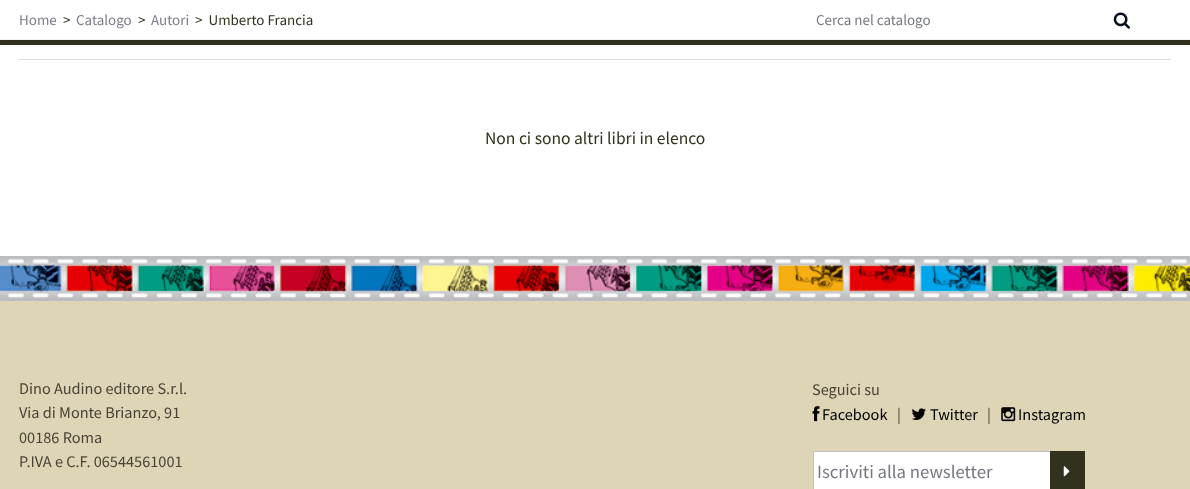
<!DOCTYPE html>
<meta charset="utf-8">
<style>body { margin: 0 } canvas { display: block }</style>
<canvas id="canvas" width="1190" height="489"></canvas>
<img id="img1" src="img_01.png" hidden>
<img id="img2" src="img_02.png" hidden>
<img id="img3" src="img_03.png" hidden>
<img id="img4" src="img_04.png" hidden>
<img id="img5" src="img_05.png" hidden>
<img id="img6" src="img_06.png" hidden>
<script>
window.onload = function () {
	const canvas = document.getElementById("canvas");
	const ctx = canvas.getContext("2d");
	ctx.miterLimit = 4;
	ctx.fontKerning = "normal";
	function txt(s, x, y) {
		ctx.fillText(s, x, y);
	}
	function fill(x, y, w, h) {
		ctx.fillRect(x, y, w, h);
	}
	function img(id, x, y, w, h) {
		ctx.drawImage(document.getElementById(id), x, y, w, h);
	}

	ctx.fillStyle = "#FFFFFF";
	fill(0, 0, 1190, 489);
	ctx.fillStyle = "#31311E";
	fill(0, 40, 1190, 5);
	ctx.fillStyle = "rgba(0, 0, 0, 0.1)";
	ctx.filter = "blur(0.5px)";
	ctx.beginPath();
	ctx.rect(1, 4, 1188, 37);
	ctx.fill();
	ctx.filter = "none";
	ctx.fillStyle = "#FFFFFF";
	fill(0, 3, 1190, 36);
	ctx.fillStyle = "#F1F2F5";
	fill(0, 39, 1190, 1);
	img("img1", 1113, 12, 17, 17);
	ctx.fillStyle = "#DDDDDD";
	fill(19, 59, 1152, 1);
	ctx.fillStyle = "#DED5B7";
	fill(0, 301, 1190, 188);
	img("img2", 0, 256, 1190, 45);
	img("img3", 812, 406, 8, 16);
	img("img4", 911, 408, 15, 12);
	img("img5", 1001, 407, 15, 15);
	ctx.fillStyle = "#FFFFFF";
	fill(814, 452, 236, 37);
	ctx.fillStyle = "#BFC1C4";
	fill(813, 451, 237, 1);
	fill(813, 451, 1, 38);
	ctx.fillStyle = "#31311E";
	fill(1050, 451, 35, 38);
	img("img6", 1063, 466, 7, 11);
	ctx.font = "15px Source Sans Pro";
	ctx.fillStyle = "#807B87";
	txt("Home", 19, 25);
	ctx.fillStyle = "#31311E";
	txt(">", 63, 25);
	ctx.fillStyle = "#807B87";
	txt("Catalogo", 76, 25);
	ctx.fillStyle = "#31311E";
	txt(">", 138, 25);
	ctx.fillStyle = "#807B87";
	txt("Autori", 151, 25);
	ctx.fillStyle = "#31311E";
	txt(">  Umberto Francia", 195, 25);
	ctx.fillStyle = "#75797F";
	txt("Cerca nel catalogo", 816, 25);
	ctx.font = "17.5px Source Sans Pro";
	ctx.fillStyle = "#31311E";
	txt("Non ci sono altri libri in elenco", 485, 144);
	ctx.font = "16.25px Source Sans Pro";
	ctx.fillStyle = "#494435";
	txt("Dino Audino editore S.r.l.", 19, 394);
	txt("Via di Monte Brianzo, 91", 19, 418);
	txt("00186 Roma", 19, 443);
	txt("P.IVA e C.F. 06544561001", 19, 467);
	txt("Seguici su", 812, 395);
	ctx.fillStyle = "#000000";
	txt("Facebook", 822, 420);
	ctx.fillStyle = "#494435";
	txt("|", 897, 420);
	ctx.fillStyle = "#000000";
	txt("Twitter", 930, 420);
	ctx.fillStyle = "#494435";
	txt("|", 987, 420);
	ctx.fillStyle = "#000000";
	txt("Instagram", 1018, 420);
	ctx.font = "18.75px Source Sans Pro";
	ctx.fillStyle = "#75797F";
	txt("Iscriviti alla newsletter", 817, 478);
};
</script>
